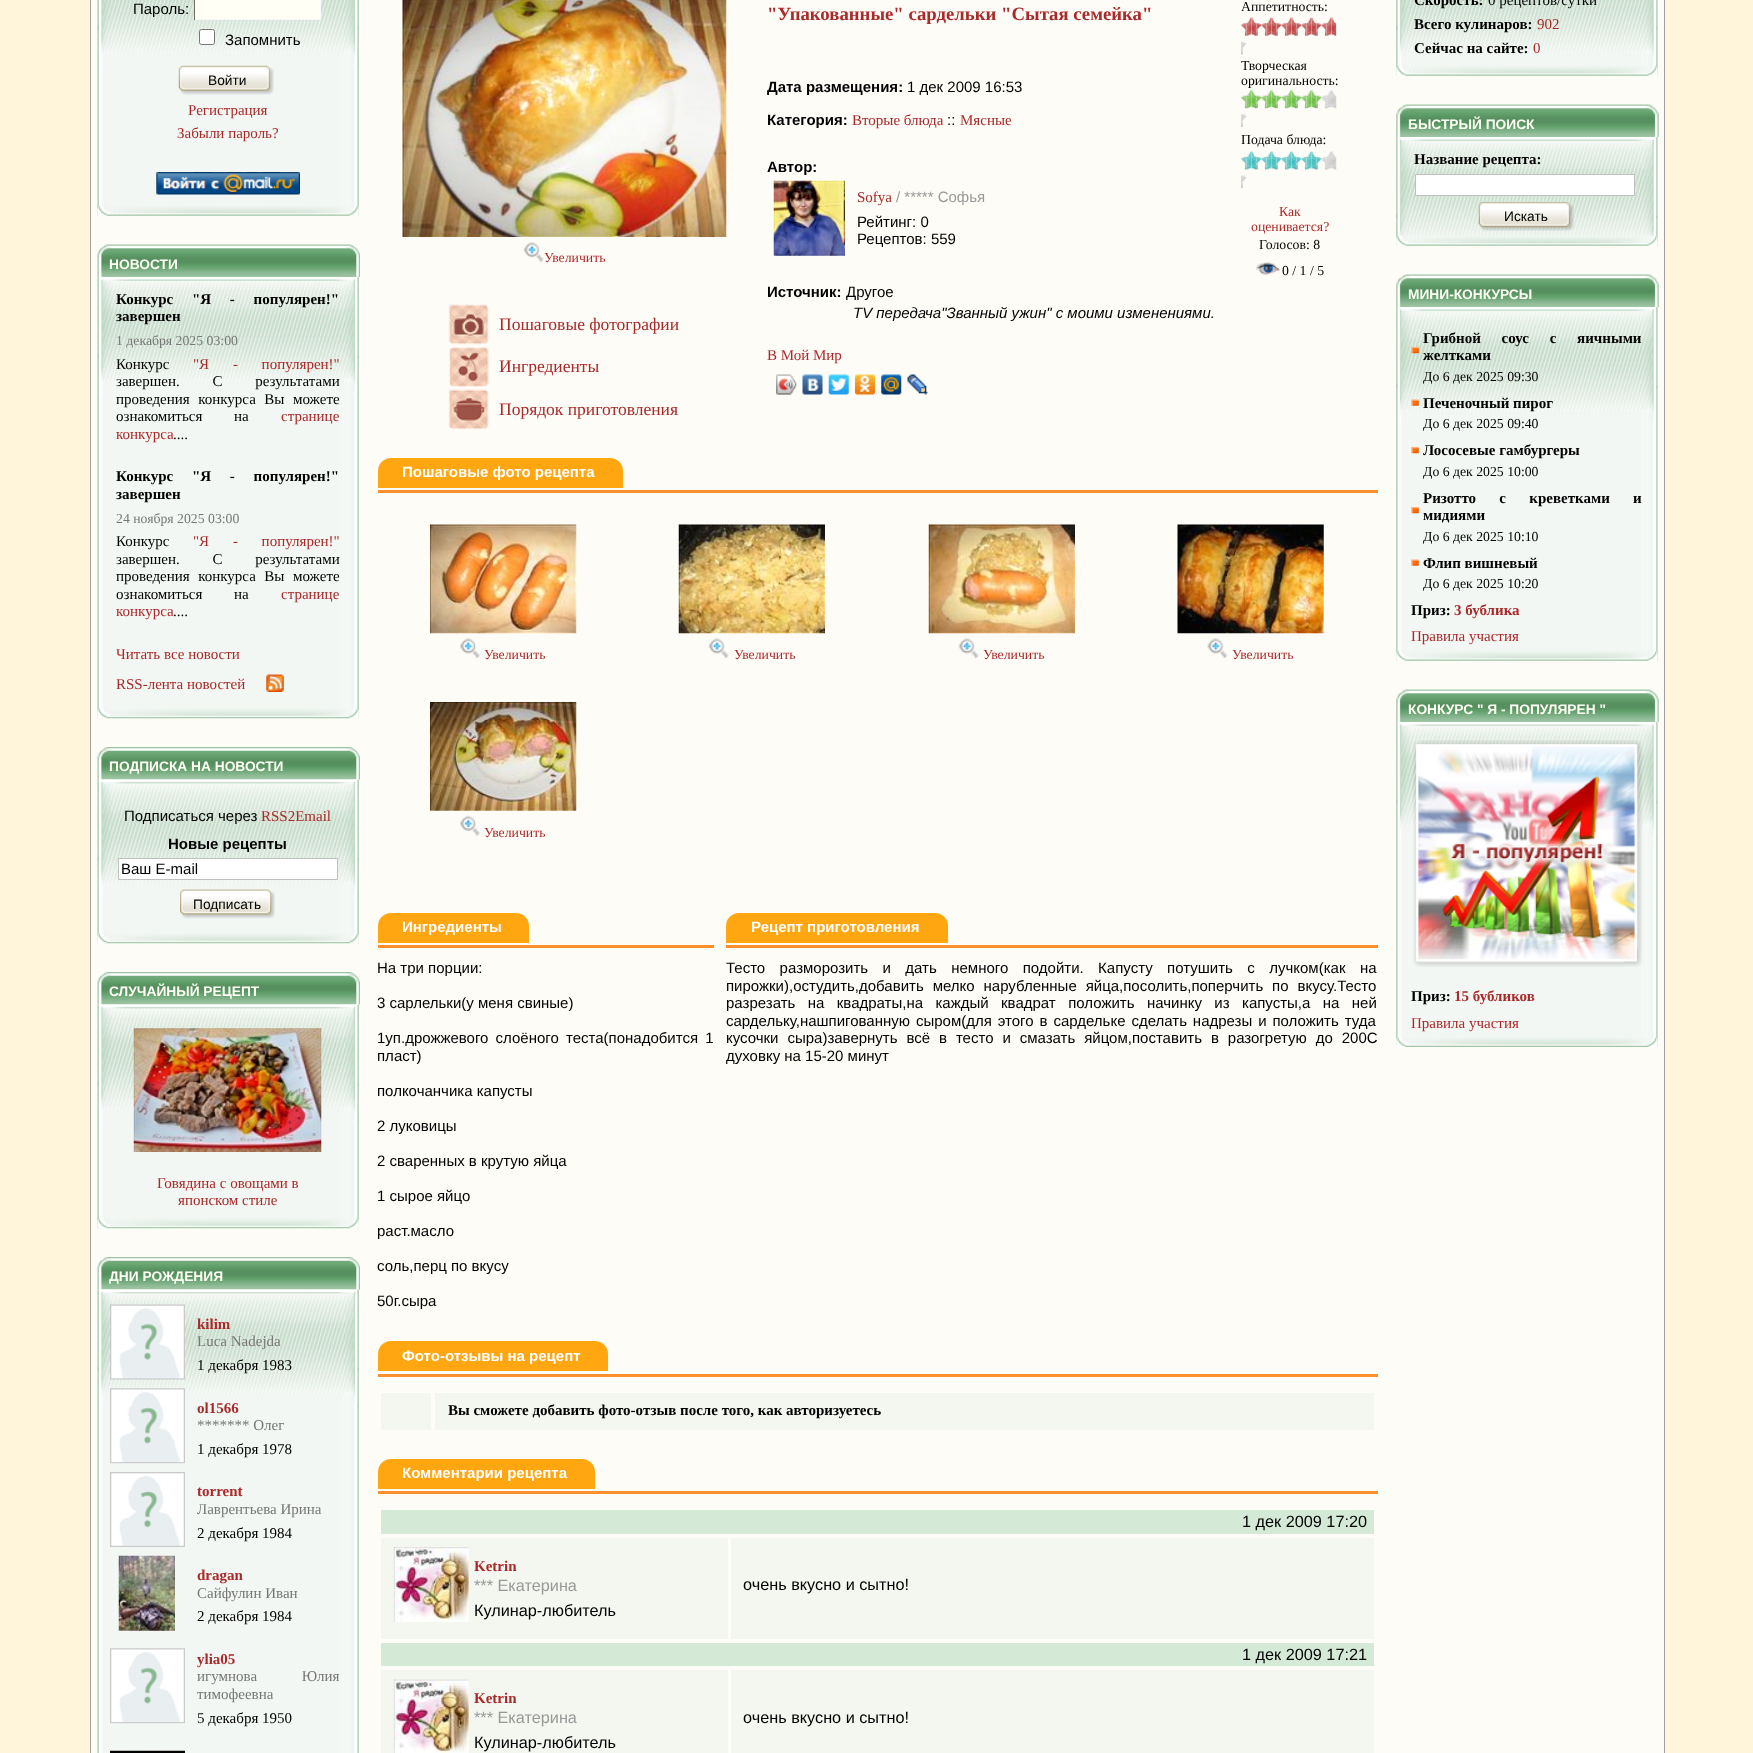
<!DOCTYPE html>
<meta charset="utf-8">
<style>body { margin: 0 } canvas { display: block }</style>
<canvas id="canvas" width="1753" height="1753"></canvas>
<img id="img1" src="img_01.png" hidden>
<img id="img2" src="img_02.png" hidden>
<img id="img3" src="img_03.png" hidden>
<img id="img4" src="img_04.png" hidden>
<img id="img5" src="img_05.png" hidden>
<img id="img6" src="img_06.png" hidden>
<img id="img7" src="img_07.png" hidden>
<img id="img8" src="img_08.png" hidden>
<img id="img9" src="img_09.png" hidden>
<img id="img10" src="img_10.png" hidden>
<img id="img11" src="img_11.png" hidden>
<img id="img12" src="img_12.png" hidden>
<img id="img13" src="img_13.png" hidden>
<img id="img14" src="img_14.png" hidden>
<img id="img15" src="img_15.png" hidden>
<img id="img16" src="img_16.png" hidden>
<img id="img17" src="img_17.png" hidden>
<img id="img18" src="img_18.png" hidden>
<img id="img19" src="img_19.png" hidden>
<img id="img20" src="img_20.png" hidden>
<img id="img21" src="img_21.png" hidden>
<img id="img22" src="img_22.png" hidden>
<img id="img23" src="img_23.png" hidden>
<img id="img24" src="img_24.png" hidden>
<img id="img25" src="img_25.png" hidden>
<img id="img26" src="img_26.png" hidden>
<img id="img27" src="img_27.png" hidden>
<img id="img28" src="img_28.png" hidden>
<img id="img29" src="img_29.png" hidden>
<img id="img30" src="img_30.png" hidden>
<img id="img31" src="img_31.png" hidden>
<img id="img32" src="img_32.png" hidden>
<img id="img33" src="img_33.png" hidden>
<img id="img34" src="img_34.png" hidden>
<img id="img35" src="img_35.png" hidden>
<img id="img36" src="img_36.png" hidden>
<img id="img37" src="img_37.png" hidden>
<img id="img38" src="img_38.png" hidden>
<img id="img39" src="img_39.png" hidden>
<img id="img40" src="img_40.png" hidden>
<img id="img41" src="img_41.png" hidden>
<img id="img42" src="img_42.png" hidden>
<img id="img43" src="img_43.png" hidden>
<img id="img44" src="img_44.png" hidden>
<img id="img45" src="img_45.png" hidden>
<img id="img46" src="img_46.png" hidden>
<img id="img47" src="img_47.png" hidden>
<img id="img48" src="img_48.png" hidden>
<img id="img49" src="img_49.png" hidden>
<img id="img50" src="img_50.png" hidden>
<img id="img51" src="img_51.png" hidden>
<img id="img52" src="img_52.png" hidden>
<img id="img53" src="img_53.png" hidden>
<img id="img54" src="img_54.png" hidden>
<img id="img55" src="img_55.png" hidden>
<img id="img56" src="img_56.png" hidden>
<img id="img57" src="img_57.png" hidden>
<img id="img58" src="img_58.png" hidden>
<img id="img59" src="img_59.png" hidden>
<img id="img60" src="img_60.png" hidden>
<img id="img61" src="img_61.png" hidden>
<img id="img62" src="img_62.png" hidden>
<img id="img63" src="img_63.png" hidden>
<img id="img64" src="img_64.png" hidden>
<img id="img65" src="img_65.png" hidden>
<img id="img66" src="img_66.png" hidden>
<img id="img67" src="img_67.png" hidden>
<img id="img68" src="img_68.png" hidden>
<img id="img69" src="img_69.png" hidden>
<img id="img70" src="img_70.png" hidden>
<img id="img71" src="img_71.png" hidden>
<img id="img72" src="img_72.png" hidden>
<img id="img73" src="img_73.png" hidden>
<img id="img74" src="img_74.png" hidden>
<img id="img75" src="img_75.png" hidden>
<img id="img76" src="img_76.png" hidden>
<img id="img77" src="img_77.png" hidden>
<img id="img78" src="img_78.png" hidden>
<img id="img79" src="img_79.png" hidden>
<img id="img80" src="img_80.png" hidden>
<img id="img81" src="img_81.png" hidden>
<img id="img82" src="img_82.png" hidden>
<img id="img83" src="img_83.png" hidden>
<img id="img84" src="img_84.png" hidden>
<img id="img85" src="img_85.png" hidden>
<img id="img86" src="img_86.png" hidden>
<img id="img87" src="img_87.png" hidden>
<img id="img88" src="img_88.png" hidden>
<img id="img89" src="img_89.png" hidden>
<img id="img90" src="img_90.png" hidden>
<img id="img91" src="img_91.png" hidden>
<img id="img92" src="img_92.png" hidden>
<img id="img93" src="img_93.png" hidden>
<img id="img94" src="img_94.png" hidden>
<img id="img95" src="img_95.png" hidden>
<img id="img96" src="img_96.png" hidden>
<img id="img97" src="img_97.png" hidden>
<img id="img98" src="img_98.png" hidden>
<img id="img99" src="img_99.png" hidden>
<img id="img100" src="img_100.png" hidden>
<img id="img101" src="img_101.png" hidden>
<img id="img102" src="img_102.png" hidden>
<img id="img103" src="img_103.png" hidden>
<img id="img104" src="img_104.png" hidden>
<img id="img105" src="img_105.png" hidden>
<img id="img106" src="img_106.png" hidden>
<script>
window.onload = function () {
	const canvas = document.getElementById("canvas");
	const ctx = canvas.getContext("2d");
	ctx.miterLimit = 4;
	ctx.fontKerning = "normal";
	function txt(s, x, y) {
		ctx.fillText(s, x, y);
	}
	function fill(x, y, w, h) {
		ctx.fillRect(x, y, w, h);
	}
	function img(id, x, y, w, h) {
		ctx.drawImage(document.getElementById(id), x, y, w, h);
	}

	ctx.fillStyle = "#FFF5DB";
	fill(0, 0, 1753, 1753);
	ctx.fillStyle = "#A0A0A0";
	fill(90, 0, 1, 1753);
	ctx.fillStyle = "#FEFCF7";
	fill(91, 0, 1573, 1753);
	img("img1", 97, 0, 262, 216);
	ctx.fillStyle = "#FFFFF5";
	fill(195, 0, 125, 19);
	ctx.fillStyle = "#F9F9FA";
	fill(320, 0, 1, 20);
	fill(194, 19, 127, 1);
	ctx.fillStyle = "#716F64";
	fill(194, 0, 1, 20);
	ctx.fillStyle = "#FFFFFF";
	ctx.beginPath();
	ctx.roundRect(199.5, 29.5, 15, 15, 2);
	ctx.fill();
	ctx.strokeStyle = "#767676";
	ctx.stroke();
	img("img2", 178, 65, 96, 30);
	img("img3", 156, 172, 144, 23);
	img("img4", 97, 205, 262, 11);
	img("img5", 97, 244, 263, 33);
	img("img6", 97, 277, 262, 442);
	img("img7", 266, 674, 18, 18);
	img("img8", 97, 708, 262, 11);
	img("img9", 97, 747, 263, 33);
	img("img10", 97, 779, 262, 165);
	ctx.beginPath();
	ctx.rect(118.5, 858.5, 219, 21);
	ctx.fill();
	ctx.strokeStyle = "#C0C0C0";
	ctx.stroke();
	img("img11", 180, 889, 95, 30);
	img("img8", 97, 933, 262, 11);
	img("img9", 97, 972, 263, 33);
	img("img12", 97, 1004, 262, 225);
	img("img13", 133, 1028, 189, 124);
	img("img8", 97, 1218, 262, 11);
	img("img9", 97, 1257, 263, 33);
	img("img14", 97, 1289, 262, 464);
	img("img15", 110, 1304, 75, 76);
	img("img16", 110, 1388, 75, 76);
	img("img17", 110, 1472, 75, 75);
	img("img18", 118, 1555, 57, 76);
	img("img19", 110, 1648, 75, 76);
	img("img20", 110, 1750, 75, 3);
	img("img21", 402, 0, 325, 237);
	img("img22", 523, 242, 21, 20);
	img("img23", 448, 304, 41, 41);
	img("img24", 449, 347, 40, 40);
	img("img25", 448, 389, 41, 41);
	img("img26", 1241, 23, 6, 13);
	img("img27", 1241, 23, 6, 13);
	img("img28", 1246, 17, 6, 19);
	img("img29", 1246, 17, 6, 19);
	img("img30", 1251, 17, 6, 19);
	img("img31", 1251, 17, 6, 19);
	img("img32", 1256, 23, 6, 13);
	img("img33", 1256, 23, 6, 13);
	img("img34", 1261, 23, 6, 13);
	img("img35", 1261, 23, 6, 13);
	img("img28", 1266, 17, 6, 19);
	img("img29", 1266, 17, 6, 19);
	img("img30", 1271, 17, 6, 19);
	img("img31", 1271, 17, 6, 19);
	img("img32", 1276, 23, 6, 13);
	img("img33", 1276, 23, 6, 13);
	img("img34", 1281, 23, 6, 13);
	img("img35", 1281, 23, 6, 13);
	img("img28", 1286, 17, 6, 19);
	img("img29", 1286, 17, 6, 19);
	img("img30", 1291, 17, 6, 19);
	img("img31", 1291, 17, 6, 19);
	img("img32", 1296, 23, 6, 13);
	img("img33", 1296, 23, 6, 13);
	img("img34", 1301, 23, 6, 13);
	img("img35", 1301, 23, 6, 13);
	img("img28", 1306, 17, 6, 19);
	img("img29", 1306, 17, 6, 19);
	img("img30", 1311, 17, 6, 19);
	img("img31", 1311, 17, 6, 19);
	img("img32", 1316, 23, 6, 13);
	img("img33", 1316, 23, 6, 13);
	img("img34", 1321, 23, 6, 13);
	img("img35", 1321, 23, 6, 13);
	img("img28", 1326, 17, 6, 19);
	img("img29", 1326, 17, 6, 19);
	img("img30", 1331, 17, 6, 19);
	img("img31", 1331, 17, 6, 19);
	img("img36", 1241, 42, 6, 13);
	img("img37", 1241, 42, 2, 13);
	img("img38", 1241, 95, 6, 14);
	img("img39", 1241, 95, 6, 14);
	img("img40", 1246, 90, 6, 19);
	img("img41", 1246, 89, 6, 20);
	img("img42", 1251, 89, 6, 20);
	img("img43", 1251, 89, 6, 20);
	img("img44", 1256, 95, 6, 14);
	img("img45", 1256, 95, 6, 14);
	img("img46", 1261, 95, 6, 14);
	img("img47", 1261, 95, 6, 14);
	img("img40", 1266, 90, 6, 19);
	img("img41", 1266, 89, 6, 20);
	img("img42", 1271, 89, 6, 20);
	img("img43", 1271, 89, 6, 20);
	img("img44", 1276, 95, 6, 14);
	img("img45", 1276, 95, 6, 14);
	img("img46", 1281, 95, 6, 14);
	img("img47", 1281, 95, 6, 14);
	img("img40", 1286, 90, 6, 19);
	img("img41", 1286, 89, 6, 20);
	img("img42", 1291, 89, 6, 20);
	img("img43", 1291, 89, 6, 20);
	img("img44", 1296, 95, 6, 14);
	img("img45", 1296, 95, 6, 14);
	img("img46", 1301, 95, 6, 14);
	img("img47", 1301, 95, 6, 14);
	img("img40", 1306, 90, 6, 19);
	img("img41", 1306, 89, 6, 20);
	img("img42", 1311, 89, 6, 20);
	img("img43", 1311, 89, 6, 20);
	img("img44", 1316, 95, 6, 14);
	img("img45", 1316, 95, 6, 14);
	img("img46", 1321, 95, 6, 14);
	img("img48", 1322, 95, 4, 13);
	img("img49", 1326, 90, 6, 19);
	img("img50", 1326, 91, 5, 17);
	img("img51", 1331, 89, 6, 20);
	img("img52", 1331, 90, 5, 18);
	img("img53", 1241, 114, 6, 13);
	img("img54", 1241, 114, 4, 13);
	img("img55", 1241, 157, 6, 13);
	img("img56", 1241, 156, 6, 14);
	img("img57", 1246, 151, 6, 19);
	img("img58", 1246, 151, 6, 19);
	img("img59", 1251, 151, 6, 19);
	img("img60", 1251, 151, 6, 19);
	img("img61", 1256, 157, 6, 13);
	img("img62", 1256, 156, 6, 14);
	img("img63", 1261, 157, 6, 13);
	img("img64", 1261, 156, 6, 14);
	img("img57", 1266, 151, 6, 19);
	img("img58", 1266, 151, 6, 19);
	img("img59", 1271, 151, 6, 19);
	img("img60", 1271, 151, 6, 19);
	img("img61", 1276, 157, 6, 13);
	img("img62", 1276, 156, 6, 14);
	img("img63", 1281, 157, 6, 13);
	img("img64", 1281, 156, 6, 14);
	img("img57", 1286, 151, 6, 19);
	img("img58", 1286, 151, 6, 19);
	img("img59", 1291, 151, 6, 19);
	img("img60", 1291, 151, 6, 19);
	img("img61", 1296, 157, 6, 13);
	img("img62", 1296, 156, 6, 14);
	img("img63", 1301, 157, 6, 13);
	img("img64", 1301, 156, 6, 14);
	img("img57", 1306, 151, 6, 19);
	img("img58", 1306, 151, 6, 19);
	img("img59", 1311, 151, 6, 19);
	img("img60", 1311, 151, 6, 19);
	img("img61", 1316, 157, 6, 13);
	img("img62", 1316, 156, 6, 14);
	img("img63", 1321, 157, 6, 13);
	img("img65", 1321, 158, 5, 12);
	img("img66", 1326, 151, 6, 19);
	img("img67", 1326, 152, 5, 18);
	img("img68", 1331, 151, 6, 19);
	img("img69", 1331, 151, 5, 19);
	img("img70", 1241, 175, 6, 14);
	img("img71", 1241, 175, 4, 13);
	img("img72", 1256, 262, 25, 13);
	img("img73", 773, 180, 72, 76);
	img("img74", 776, 374, 21, 21);
	img("img75", 776, 374, 21, 21);
	img("img76", 802, 374, 21, 21);
	img("img77", 828, 374, 21, 21);
	img("img78", 855, 374, 20, 21);
	img("img79", 881, 374, 21, 21);
	img("img80", 907, 374, 21, 21);
	ctx.fillStyle = "#FFA610";
	ctx.beginPath();
	ctx.roundRect(378, 458, 245, 30, [13, 13, 0, 0]);
	ctx.fill();
	ctx.fillStyle = "#FC902D";
	fill(378, 490, 1000, 3);
	img("img81", 430, 524, 147, 110);
	img("img82", 460, 638, 20, 21);
	img("img83", 678, 524, 147, 110);
	img("img84", 708, 638, 21, 21);
	img("img85", 928, 524, 147, 110);
	img("img84", 958, 638, 21, 21);
	img("img86", 1177, 524, 147, 110);
	img("img87", 1207, 638, 21, 21);
	img("img88", 430, 702, 147, 109);
	img("img89", 460, 815, 20, 21);
	ctx.fillStyle = "#FFA610";
	ctx.beginPath();
	ctx.roundRect(378, 913, 151, 30, [13, 13, 0, 0]);
	ctx.fill();
	ctx.fillStyle = "#FC902D";
	fill(378, 945, 336, 3);
	ctx.fillStyle = "#FFA610";
	ctx.beginPath();
	ctx.roundRect(726, 913, 222, 30, [13, 13, 0, 0]);
	ctx.fill();
	ctx.fillStyle = "#FC902D";
	fill(726, 945, 652, 3);
	ctx.fillStyle = "#FFA610";
	ctx.beginPath();
	ctx.roundRect(378, 1341, 230, 30, [13, 13, 0, 0]);
	ctx.fill();
	ctx.fillStyle = "#FC902D";
	fill(378, 1374, 1000, 3);
	ctx.fillStyle = "#F4F6F0";
	fill(381, 1393, 50, 37);
	fill(435, 1393, 939, 37);
	ctx.fillStyle = "#FFA610";
	ctx.beginPath();
	ctx.roundRect(378, 1459, 217, 30, [13, 13, 0, 0]);
	ctx.fill();
	ctx.fillStyle = "#FC902D";
	fill(378, 1491, 1000, 3);
	ctx.fillStyle = "#D4EAD6";
	fill(381, 1510, 993, 24);
	ctx.fillStyle = "#F4F6F0";
	fill(381, 1538, 347, 101);
	img("img90", 393, 1547, 76, 75);
	fill(731, 1538, 643, 101);
	ctx.fillStyle = "#D4EAD6";
	fill(381, 1643, 993, 23);
	ctx.fillStyle = "#F4F6F0";
	fill(381, 1670, 347, 83);
	img("img91", 393, 1679, 76, 74);
	fill(731, 1670, 643, 83);
	img("img92", 1396, 0, 262, 76);
	img("img93", 1396, 65, 262, 11);
	img("img94", 1396, 104, 263, 33);
	img("img95", 1396, 137, 262, 109);
	ctx.fillStyle = "#FFFFFF";
	ctx.beginPath();
	ctx.rect(1415.5, 174.5, 219, 21);
	ctx.fill();
	ctx.stroke();
	img("img96", 1478, 202, 96, 29);
	img("img97", 1396, 235, 262, 11);
	img("img94", 1396, 274, 263, 33);
	img("img98", 1396, 307, 262, 354);
	img("img99", 1411, 347, 8, 7);
	img("img100", 1411, 399, 8, 7);
	img("img101", 1411, 447, 8, 7);
	img("img101", 1411, 507, 8, 7);
	img("img102", 1411, 559, 8, 7);
	img("img103", 1396, 650, 262, 11);
	img("img94", 1396, 689, 263, 33);
	img("img104", 1396, 722, 262, 325);
	img("img105", 1413, 740, 230, 227);
	img("img106", 1396, 1037, 262, 10);
	ctx.fillStyle = "#A0A0A0";
	fill(1664, 0, 1, 1753);
	ctx.font = "15px Liberation Sans";
	ctx.fillStyle = "#000000";
	txt("Пароль:", 133, 14);
	txt("Запомнить", 225, 45);
	ctx.font = "13.75px Liberation Sans";
	txt("Войти", 208, 85);
	ctx.font = "15px Liberation Serif";
	ctx.fillStyle = "#A92A2A";
	txt("Регистрация", 188, 115);
	txt("Забыли пароль?", 177, 138);
	ctx.font = "bold 13.75px Liberation Sans";
	ctx.fillStyle = "#FFFFF5";
	txt("НОВОСТИ", 109, 269);
	ctx.wordSpacing = "15px";
	ctx.font = "bold 15px Liberation Serif";
	ctx.fillStyle = "#000000";
	txt("Конкурс \"Я - популярен!\"", 116, 304);
	ctx.wordSpacing = "0px";
	txt("завершен", 116, 321);
	ctx.font = "13.75px Liberation Serif";
	ctx.fillStyle = "#777777";
	txt("1 декабря 2025 03:00", 116, 345);
	ctx.font = "15px Liberation Serif";
	ctx.fillStyle = "#000000";
	txt("Конкурс", 116, 369);
	ctx.wordSpacing = "20px";
	ctx.fillStyle = "#A92A2A";
	txt("\"Я - популярен!\"", 193, 369);
	ctx.wordSpacing = "29px";
	ctx.fillStyle = "#000000";
	txt("завершен. С результатами", 116, 386);
	ctx.wordSpacing = "4.75px";
	txt("проведения конкурса Вы можете", 116, 404);
	ctx.wordSpacing = "28px";
	txt("ознакомиться на", 116, 421);
	ctx.wordSpacing = "0px";
	ctx.fillStyle = "#A92A2A";
	txt("странице", 281, 421);
	txt("конкурса", 116, 439);
	ctx.fillStyle = "#000000";
	txt("....", 173, 439);
	ctx.wordSpacing = "15px";
	ctx.font = "bold 15px Liberation Serif";
	txt("Конкурс \"Я - популярен!\"", 116, 481);
	ctx.wordSpacing = "0px";
	txt("завершен", 116, 499);
	ctx.font = "13.75px Liberation Serif";
	ctx.fillStyle = "#777777";
	txt("24 ноября 2025 03:00", 116, 523);
	ctx.font = "15px Liberation Serif";
	ctx.fillStyle = "#000000";
	txt("Конкурс", 116, 546);
	ctx.wordSpacing = "20px";
	ctx.fillStyle = "#A92A2A";
	txt("\"Я - популярен!\"", 193, 546);
	ctx.wordSpacing = "29px";
	ctx.fillStyle = "#000000";
	txt("завершен. С результатами", 116, 564);
	ctx.wordSpacing = "4.75px";
	txt("проведения конкурса Вы можете", 116, 581);
	ctx.wordSpacing = "28px";
	txt("ознакомиться на", 116, 599);
	ctx.wordSpacing = "0px";
	ctx.fillStyle = "#A92A2A";
	txt("странице", 281, 599);
	txt("конкурса", 116, 616);
	ctx.fillStyle = "#000000";
	txt("....", 173, 616);
	ctx.fillStyle = "#A92A2A";
	txt("Читать все новости", 116, 659);
	txt("RSS-лента новостей", 116, 689);
	ctx.font = "bold 13.75px Liberation Sans";
	ctx.fillStyle = "#FFFFF5";
	txt("ПОДПИСКА НА НОВОСТИ", 109, 771);
	ctx.font = "15px Liberation Sans";
	ctx.fillStyle = "#000000";
	txt("Подписаться через", 124, 821);
	ctx.font = "15px Liberation Serif";
	ctx.fillStyle = "#A92A2A";
	txt("RSS2Email", 261, 821);
	ctx.font = "bold 15px Liberation Sans";
	ctx.fillStyle = "#000000";
	txt("Новые рецепты", 168, 849);
	ctx.font = "15px Liberation Sans";
	txt("Ваш E-mail", 121, 874);
	ctx.font = "13.75px Liberation Sans";
	txt("Подписать", 193, 909);
	ctx.font = "bold 13.75px Liberation Sans";
	ctx.fillStyle = "#FFFFF5";
	txt("СЛУЧАЙНЫЙ РЕЦЕПТ", 109, 996);
	ctx.font = "15px Liberation Serif";
	ctx.fillStyle = "#A92A2A";
	txt("Говядина с овощами в", 157, 1188);
	txt("японском стиле", 178, 1205);
	ctx.font = "bold 13.75px Liberation Sans";
	ctx.fillStyle = "#FFFFF5";
	txt("ДНИ РОЖДЕНИЯ", 109, 1281);
	ctx.font = "bold 15px Liberation Serif";
	ctx.fillStyle = "#A92A2A";
	txt("kilim", 197, 1329);
	ctx.font = "15px Liberation Serif";
	ctx.fillStyle = "#777777";
	txt("Luca Nadejda", 197, 1346);
	ctx.fillStyle = "#000000";
	txt("1 декабря 1983", 197, 1370);
	ctx.font = "bold 15px Liberation Serif";
	ctx.fillStyle = "#A92A2A";
	txt("ol1566", 197, 1413);
	ctx.font = "15px Liberation Serif";
	ctx.fillStyle = "#777777";
	txt("******* Олег", 197, 1430);
	ctx.fillStyle = "#000000";
	txt("1 декабря 1978", 197, 1454);
	ctx.font = "bold 15px Liberation Serif";
	ctx.fillStyle = "#A92A2A";
	txt("torrent", 197, 1496);
	ctx.font = "15px Liberation Serif";
	ctx.fillStyle = "#777777";
	txt("Лаврентьева Ирина", 197, 1514);
	ctx.fillStyle = "#000000";
	txt("2 декабря 1984", 197, 1538);
	ctx.font = "bold 15px Liberation Serif";
	ctx.fillStyle = "#A92A2A";
	txt("dragan", 197, 1580);
	ctx.font = "15px Liberation Serif";
	ctx.fillStyle = "#777777";
	txt("Сайфулин Иван", 197, 1598);
	ctx.fillStyle = "#000000";
	txt("2 декабря 1984", 197, 1621);
	ctx.font = "bold 15px Liberation Serif";
	ctx.fillStyle = "#A92A2A";
	txt("ylia05", 197, 1664);
	ctx.wordSpacing = "41px";
	ctx.font = "15px Liberation Serif";
	ctx.fillStyle = "#777777";
	txt("игумнова Юлия", 197, 1681);
	ctx.wordSpacing = "0px";
	txt("тимофеевна", 197, 1699);
	ctx.fillStyle = "#000000";
	txt("5 декабря 1950", 197, 1723);
	ctx.font = "13.75px Liberation Serif";
	ctx.fillStyle = "#A92A2A";
	txt("Увеличить", 544, 262);
	ctx.font = "17.5px Liberation Serif";
	txt("Пошаговые фотографии", 499, 330);
	txt("Ингредиенты", 499, 372);
	txt("Порядок приготовления", 499, 415);
	ctx.font = "bold 18.75px Liberation Serif";
	txt("\"Упакованные\" сардельки \"Сытая семейка\"", 767, 20);
	ctx.font = "13.75px Liberation Serif";
	ctx.fillStyle = "#000000";
	txt("Аппетитность:", 1241, 11);
	txt("Творческая", 1241, 70);
	txt("оригинальность:", 1241, 85);
	txt("Подача блюда:", 1241, 144);
	ctx.fillStyle = "#A92A2A";
	txt("Как", 1279, 216);
	txt("оценивается?", 1251, 231);
	ctx.fillStyle = "#000000";
	txt("Голосов: 8", 1259, 249);
	txt("0 / 1 / 5", 1282, 275);
	ctx.font = "bold 15px Liberation Sans";
	txt("Дата размещения:", 767, 92);
	ctx.font = "15px Liberation Sans";
	txt("1 дек 2009 16:53", 907, 92);
	ctx.font = "bold 15px Liberation Sans";
	txt("Категория:", 767, 125);
	ctx.font = "15px Liberation Serif";
	ctx.fillStyle = "#A92A2A";
	txt("Вторые блюда", 852, 125);
	ctx.font = "15px Liberation Sans";
	ctx.fillStyle = "#000000";
	txt("::", 947, 125);
	ctx.font = "15px Liberation Serif";
	ctx.fillStyle = "#A92A2A";
	txt("Мясные", 960, 125);
	ctx.font = "bold 15px Liberation Sans";
	ctx.fillStyle = "#000000";
	txt("Автор:", 767, 172);
	ctx.font = "15px Liberation Serif";
	ctx.fillStyle = "#A92A2A";
	txt("Sofya", 857, 202);
	ctx.font = "15px Liberation Sans";
	ctx.fillStyle = "#999999";
	txt("/ ***** Софья", 896, 202);
	ctx.fillStyle = "#000000";
	txt("Рейтинг: 0", 857, 227);
	txt("Рецептов: 559", 857, 244);
	ctx.font = "bold 15px Liberation Sans";
	txt("Источник:", 767, 297);
	ctx.font = "15px Liberation Sans";
	txt("Другое", 846, 297);
	ctx.font = "italic 15px Liberation Sans";
	txt("TV передача\"Званный ужин\" с моими изменениями.", 853, 318);
	ctx.font = "15px Liberation Serif";
	ctx.fillStyle = "#A92A2A";
	txt("В Мой Мир", 767, 360);
	ctx.font = "bold 15px Liberation Sans";
	ctx.fillStyle = "#FFFFFF";
	txt("Пошаговые фото рецепта", 402, 477);
	ctx.font = "13.75px Liberation Serif";
	ctx.fillStyle = "#A92A2A";
	txt("Увеличить", 484, 659);
	txt("Увеличить", 734, 659);
	txt("Увеличить", 983, 659);
	txt("Увеличить", 1232, 659);
	txt("Увеличить", 484, 837);
	ctx.font = "bold 15px Liberation Sans";
	ctx.fillStyle = "#FFFFFF";
	txt("Ингредиенты", 402, 932);
	txt("Рецепт приготовления", 751, 932);
	ctx.font = "15px Liberation Sans";
	ctx.fillStyle = "#000000";
	txt("На три порции:", 377, 973);
	txt("3 сарлельки(у меня свиные)", 377, 1008);
	ctx.wordSpacing = "3px";
	txt("1уп.дрожжевого слоёного теста(понадобится 1", 377, 1043);
	ctx.wordSpacing = "0px";
	txt("пласт)", 377, 1061);
	txt("полкочанчика капусты", 377, 1096);
	txt("2 луковицы", 377, 1131);
	txt("2 сваренных в крутую яйца", 377, 1166);
	txt("1 сырое яйцо", 377, 1201);
	txt("раст.масло", 377, 1236);
	txt("соль,перц по вкусу", 377, 1271);
	txt("50г.сыра", 377, 1306);
	ctx.wordSpacing = "10.25px";
	txt("Тесто разморозить и дать немного подойти. Капусту потушить с лучком(как на", 726, 973);
	ctx.wordSpacing = "4.75px";
	txt("пирожки),остудить,добавить мелко нарубленные яйца,посолить,поперчить по вкусу.Тесто", 726, 991);
	ctx.wordSpacing = "8.25px";
	txt("разрезать на квадраты,на каждый квадрат положить начинку из капусты,а на ней", 726, 1008);
	ctx.wordSpacing = "1.75px";
	txt("сардельку,нашпигованную сыром(для этого в сардельке сделать надрезы и положить туда", 726, 1026);
	ctx.wordSpacing = "4.75px";
	txt("кусочки сыра)завернуть всё в тесто и смазать яйцом,поставить в разогретую до 200С", 726, 1043);
	ctx.wordSpacing = "0px";
	txt("духовку на 15-20 минут", 726, 1061);
	ctx.font = "bold 15px Liberation Sans";
	ctx.fillStyle = "#FFFFFF";
	txt("Фото-отзывы на рецепт", 402, 1361);
	ctx.font = "bold 15px Liberation Serif";
	ctx.fillStyle = "#000000";
	txt("Вы сможете добавить фото-отзыв после того, как авторизуетесь", 448, 1415);
	ctx.font = "bold 15px Liberation Sans";
	ctx.fillStyle = "#FFFFFF";
	txt("Комментарии рецепта", 402, 1478);
	ctx.font = "16.25px Liberation Sans";
	ctx.fillStyle = "#000000";
	txt("1 дек 2009 17:20", 1242, 1527);
	ctx.font = "bold 15px Liberation Serif";
	ctx.fillStyle = "#A92A2A";
	txt("Ketrin", 474, 1571);
	ctx.font = "16.25px Liberation Sans";
	ctx.fillStyle = "#999999";
	txt("*** Екатерина", 474, 1591);
	ctx.fillStyle = "#000000";
	txt("Кулинар-любитель", 474, 1616);
	txt("очень вкусно и сытно!", 743, 1590);
	txt("1 дек 2009 17:21", 1242, 1660);
	ctx.font = "bold 15px Liberation Serif";
	ctx.fillStyle = "#A92A2A";
	txt("Ketrin", 474, 1703);
	ctx.font = "16.25px Liberation Sans";
	ctx.fillStyle = "#999999";
	txt("*** Екатерина", 474, 1723);
	ctx.fillStyle = "#000000";
	txt("Кулинар-любитель", 474, 1748);
	txt("очень вкусно и сытно!", 743, 1723);
	ctx.font = "bold 15px Liberation Serif";
	txt("Скорость:", 1414, 5);
	ctx.font = "15px Liberation Serif";
	txt("0 рецептов/сутки", 1488, 5);
	ctx.font = "bold 15px Liberation Serif";
	txt("Всего кулинаров:", 1414, 29);
	ctx.font = "15px Liberation Serif";
	ctx.fillStyle = "#A92A2A";
	txt("902", 1537, 29);
	ctx.font = "bold 15px Liberation Serif";
	ctx.fillStyle = "#000000";
	txt("Сейчас на сайте:", 1414, 53);
	ctx.font = "15px Liberation Serif";
	ctx.fillStyle = "#A92A2A";
	txt("0", 1533, 53);
	ctx.font = "bold 13.75px Liberation Sans";
	ctx.fillStyle = "#FFFFF5";
	txt("БЫСТРЫЙ ПОИСК", 1408, 129);
	ctx.font = "bold 15px Liberation Serif";
	ctx.fillStyle = "#000000";
	txt("Название рецепта:", 1414, 164);
	ctx.font = "13.75px Liberation Sans";
	txt("Искать", 1504, 221);
	ctx.font = "bold 13.75px Liberation Sans";
	ctx.fillStyle = "#FFFFF5";
	txt("МИНИ-КОНКУРСЫ", 1408, 299);
	ctx.wordSpacing = "17px";
	ctx.font = "bold 15px Liberation Serif";
	ctx.fillStyle = "#000000";
	txt("Грибной соус с яичными", 1423, 343);
	ctx.wordSpacing = "0px";
	txt("желтками", 1423, 360);
	ctx.font = "13.75px Liberation Serif";
	txt("До 6 дек 2025 09:30", 1423, 381);
	ctx.font = "bold 15px Liberation Serif";
	txt("Печеночный пирог", 1423, 408);
	ctx.font = "13.75px Liberation Serif";
	txt("До 6 дек 2025 09:40", 1423, 428);
	ctx.font = "bold 15px Liberation Serif";
	txt("Лососевые гамбургеры", 1423, 455);
	ctx.font = "13.75px Liberation Serif";
	txt("До 6 дек 2025 10:00", 1423, 476);
	ctx.wordSpacing = "19.5px";
	ctx.font = "bold 15px Liberation Serif";
	txt("Ризотто с креветками и", 1423, 503);
	ctx.wordSpacing = "0px";
	txt("мидиями", 1423, 520);
	ctx.font = "13.75px Liberation Serif";
	txt("До 6 дек 2025 10:10", 1423, 541);
	ctx.font = "bold 15px Liberation Serif";
	txt("Флип вишневый", 1423, 568);
	ctx.font = "13.75px Liberation Serif";
	txt("До 6 дек 2025 10:20", 1423, 588);
	ctx.font = "bold 15px Liberation Serif";
	txt("Приз:", 1411, 615);
	ctx.fillStyle = "#A92A2A";
	txt("3 бублика", 1454, 615);
	ctx.font = "15px Liberation Serif";
	txt("Правила участия", 1411, 641);
	ctx.font = "bold 13.75px Liberation Sans";
	ctx.fillStyle = "#FFFFF5";
	txt("КОНКУРС \" Я - ПОПУЛЯРЕН \"", 1408, 714);
	ctx.font = "bold 15px Liberation Serif";
	ctx.fillStyle = "#000000";
	txt("Приз:", 1411, 1001);
	ctx.fillStyle = "#A92A2A";
	txt("15 бубликов", 1454, 1001);
	ctx.font = "15px Liberation Serif";
	txt("Правила участия", 1411, 1028);
};
</script>
